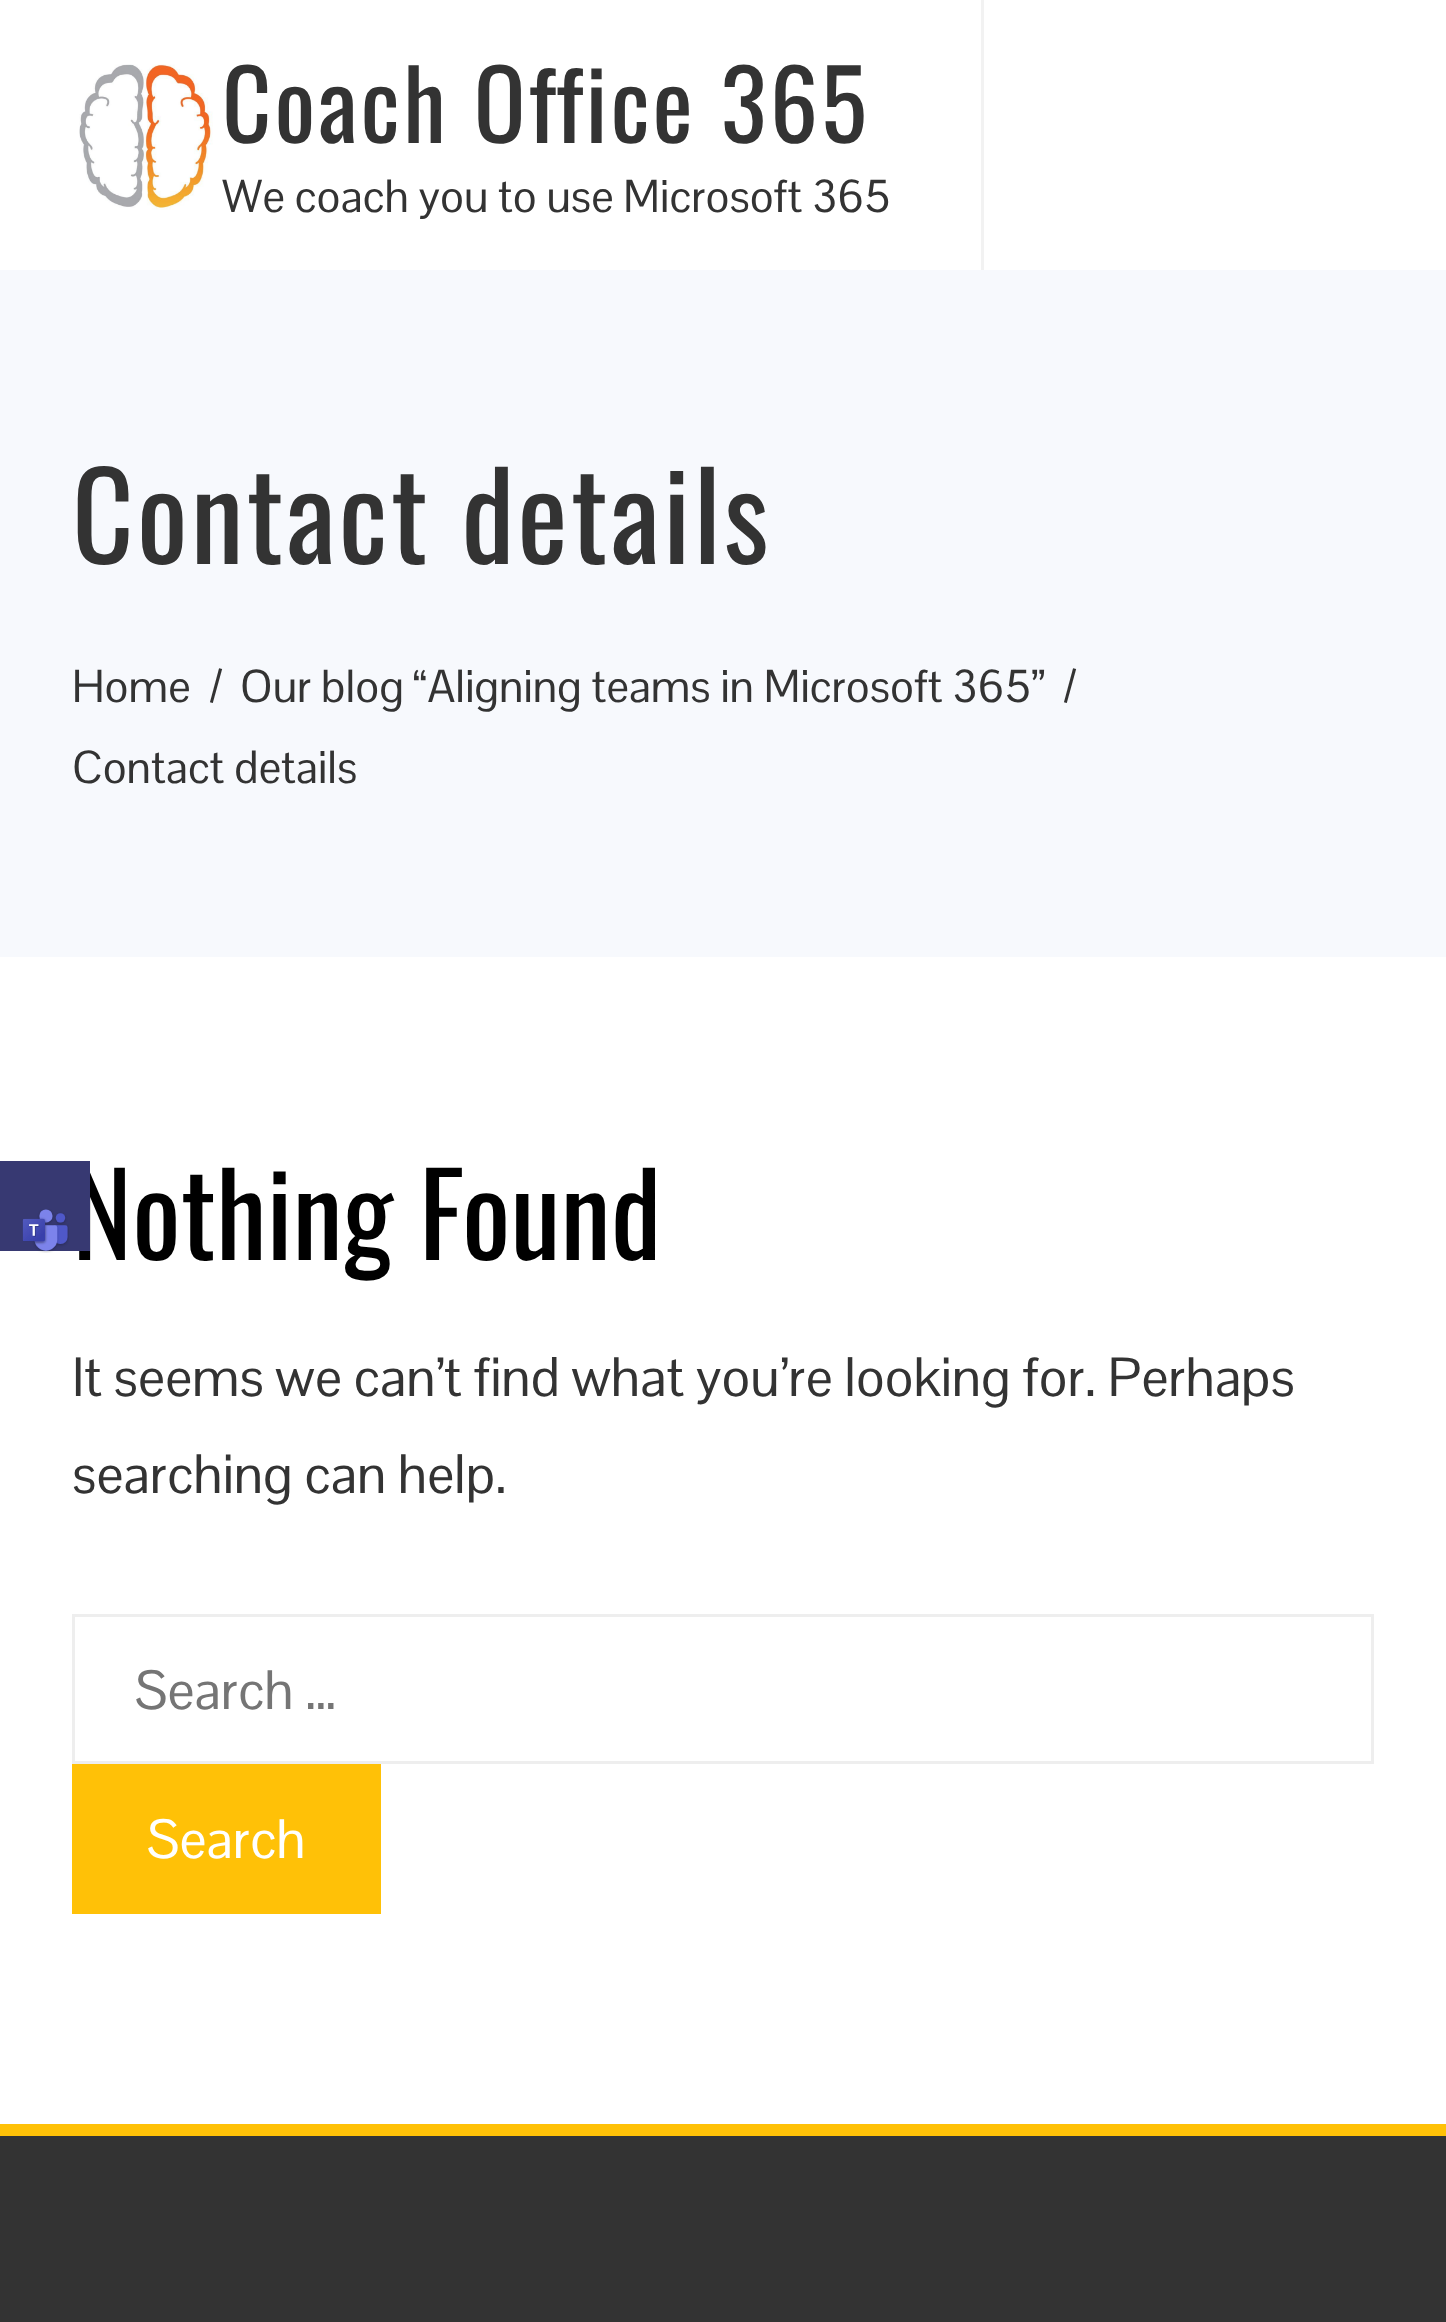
<!DOCTYPE html>
<meta charset="utf-8">
<style>body { margin: 0 } canvas { display: block }</style>
<canvas id="canvas" width="1446" height="2322"></canvas>
<img id="img1" src="img_02.png" hidden>
<img id="img2" src="img_01.png" hidden>
<script>
window.onload = function () {
	const canvas = document.getElementById("canvas");
	const ctx = canvas.getContext("2d");
	ctx.miterLimit = 4;
	ctx.fontKerning = "normal";
	function txt(s, x, y) {
		ctx.fillText(s, x, y);
	}
	function fill(x, y, w, h) {
		ctx.fillRect(x, y, w, h);
	}
	function img(id, x, y, w, h) {
		ctx.drawImage(document.getElementById(id), x, y, w, h);
	}

	ctx.fillStyle = "#FFFFFF";
	fill(0, 0, 1446, 2322);
	ctx.fillStyle = "#F2F2F2";
	fill(981, 0, 3, 270);
	img("img1", 79, 64, 134, 146);
	ctx.fillStyle = "#F7F9FD";
	fill(0, 270, 1446, 687);
	ctx.strokeStyle = "#EEEEEE";
	ctx.lineWidth = 3;
	ctx.strokeRect(73.5, 1615.5, 1299, 147);
	ctx.fillStyle = "#FFC107";
	fill(72, 1764, 309, 150);
	fill(0, 2124, 1446, 12);
	ctx.fillStyle = "#333333";
	fill(0, 2136, 1446, 186);
	ctx.letterSpacing = "3px";
	ctx.font = "96px Oswald";
	txt("Coach Office 365", 222, 143);
	ctx.letterSpacing = "0px";
	ctx.font = "45px Pontano Sans";
	txt("We coach you to use Microsoft 365", 222, 212);
	ctx.letterSpacing = "3px";
	ctx.font = "120px Oswald";
	txt("Contact details", 72, 564);
	ctx.letterSpacing = "0px";
	ctx.font = "45px Pontano Sans";
	txt("Home", 72, 702);
	txt("/", 209, 702);
	txt("Our blog “Aligning teams in Microsoft 365”", 240, 702);
	txt("/", 1063, 702);
	txt("Contact details", 72, 783);
	ctx.font = "114px Oswald";
	ctx.fillStyle = "#000000";
	txt("Nothing Found", 72, 1260);
	ctx.fillStyle = "#373972";
	fill(0, 1161, 90, 90);
	img("img2", 22, 1209, 47, 44);
	ctx.font = "54px Pontano Sans";
	ctx.fillStyle = "#333333";
	txt("It seems we can’t find what you’re looking for. Perhaps", 72, 1396);
	txt("searching can help.", 72, 1493);
	ctx.fillStyle = "#757575";
	txt("Search …", 135, 1709);
	ctx.fillStyle = "#FFFFFF";
	txt("Search", 147, 1858);
};
</script>
